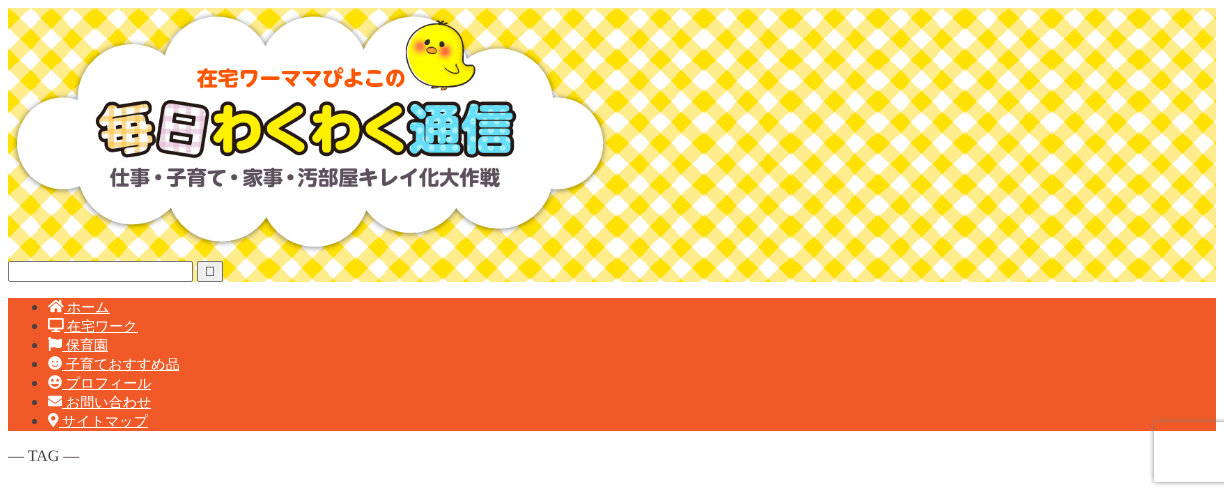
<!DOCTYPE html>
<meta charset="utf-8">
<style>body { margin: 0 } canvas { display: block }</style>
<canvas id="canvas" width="1224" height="496"></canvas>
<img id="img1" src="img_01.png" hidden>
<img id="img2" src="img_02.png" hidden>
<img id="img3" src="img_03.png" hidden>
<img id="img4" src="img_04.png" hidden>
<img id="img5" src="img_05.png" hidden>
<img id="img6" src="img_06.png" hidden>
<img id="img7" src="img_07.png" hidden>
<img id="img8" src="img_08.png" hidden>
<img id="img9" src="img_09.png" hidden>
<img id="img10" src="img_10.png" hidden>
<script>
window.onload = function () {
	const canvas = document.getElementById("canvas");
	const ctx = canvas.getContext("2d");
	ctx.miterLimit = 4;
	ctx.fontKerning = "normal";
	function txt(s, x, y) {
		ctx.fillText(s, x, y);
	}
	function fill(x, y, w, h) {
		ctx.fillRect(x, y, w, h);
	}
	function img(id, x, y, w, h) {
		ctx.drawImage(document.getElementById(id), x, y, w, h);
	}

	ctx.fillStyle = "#FFFFFF";
	fill(0, 0, 1224, 496);
	img("img1", 8, 8, 1208, 274);
	img("img2", 13, 13, 595, 239);
	ctx.beginPath();
	ctx.roundRect(8.5, 261.5, 184, 20, 1.5);
	ctx.fill();
	ctx.strokeStyle = "#767676";
	ctx.stroke();
	ctx.fillStyle = "#EFEFEF";
	ctx.beginPath();
	ctx.roundRect(197.5, 261.5, 25, 20, 1.5);
	ctx.fill();
	ctx.stroke();
	img("img3", 206, 266, 8, 10);
	ctx.fillStyle = "#F05A28";
	fill(8, 298, 1208, 133);
	ctx.fillStyle = "#493E41";
	ctx.beginPath();
	ctx.arc(34.5, 307.5, 2.5, 0, Math.PI * 2);
	ctx.fill();
	img("img4", 48, 299, 16, 14);
	ctx.fillStyle = "#FFFFFF";
	fill(64, 313, 46, 1);
	ctx.fillStyle = "#493E41";
	ctx.beginPath();
	ctx.arc(34.5, 326.5, 2.5, 0, Math.PI * 2);
	ctx.fill();
	img("img5", 48, 318, 16, 14);
	ctx.fillStyle = "#FFFFFF";
	fill(64, 332, 74, 1);
	ctx.fillStyle = "#493E41";
	ctx.beginPath();
	ctx.arc(34.5, 345.5, 2.5, 0, Math.PI * 2);
	ctx.fill();
	img("img6", 48, 337, 14, 14);
	ctx.fillStyle = "#FFFFFF";
	fill(62, 351, 46, 1);
	ctx.fillStyle = "#493E41";
	ctx.beginPath();
	ctx.arc(34.5, 364.5, 2.5, 0, Math.PI * 2);
	ctx.fill();
	img("img7", 48, 356, 14, 14);
	ctx.fillStyle = "#FFFFFF";
	fill(62, 370, 117, 1);
	ctx.fillStyle = "#493E41";
	ctx.beginPath();
	ctx.arc(34.5, 383.5, 2.5, 0, Math.PI * 2);
	ctx.fill();
	img("img8", 48, 375, 14, 14);
	ctx.fillStyle = "#FFFFFF";
	fill(62, 389, 89, 1);
	ctx.fillStyle = "#493E41";
	ctx.beginPath();
	ctx.arc(34.5, 402.5, 2.5, 0, Math.PI * 2);
	ctx.fill();
	img("img9", 48, 395, 14, 12);
	ctx.fillStyle = "#FFFFFF";
	fill(62, 408, 89, 1);
	ctx.fillStyle = "#493E41";
	ctx.beginPath();
	ctx.arc(34.5, 421.5, 2.5, 0, Math.PI * 2);
	ctx.fill();
	img("img10", 48, 413, 11, 14);
	ctx.fillStyle = "#FFFFFF";
	fill(59, 427, 89, 1);
	ctx.save();
	ctx.beginPath();
	ctx.moveTo(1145, 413);
	ctx.lineTo(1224, 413);
	ctx.lineTo(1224, 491);
	ctx.lineTo(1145, 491);
	ctx.closePath();
	ctx.moveTo(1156, 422);
	ctx.lineTo(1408, 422);
	ctx.bezierCurveTo(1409, 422, 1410, 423, 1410, 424);
	ctx.lineTo(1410, 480);
	ctx.bezierCurveTo(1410, 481, 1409, 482, 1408, 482);
	ctx.lineTo(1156, 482);
	ctx.bezierCurveTo(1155, 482, 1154, 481, 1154, 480);
	ctx.lineTo(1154, 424);
	ctx.bezierCurveTo(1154, 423, 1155, 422, 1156, 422);
	ctx.closePath();
	ctx.clip("evenodd");
	ctx.fillStyle = "#808080";
	ctx.filter = "blur(2.5px)";
	ctx.beginPath();
	ctx.roundRect(1154, 422, 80, 60, 2);
	ctx.fill();
	ctx.filter = "none";
	ctx.restore();
	ctx.font = "500 14px WenQuanYi Zen Hei";
	txt("ホーム", 67, 312);
	txt("在宅ワーク", 67, 331);
	txt("保育園", 66, 350);
	txt("子育ておすすめ品", 66, 369);
	txt("プロフィール", 66, 388);
	txt("お問い合わせ", 66, 407);
	txt("サイトマップ", 62, 426);
	ctx.font = "16px Liberation Serif";
	ctx.fillStyle = "#493E41";
	txt("― TAG ―", 8, 461);
};
</script>
